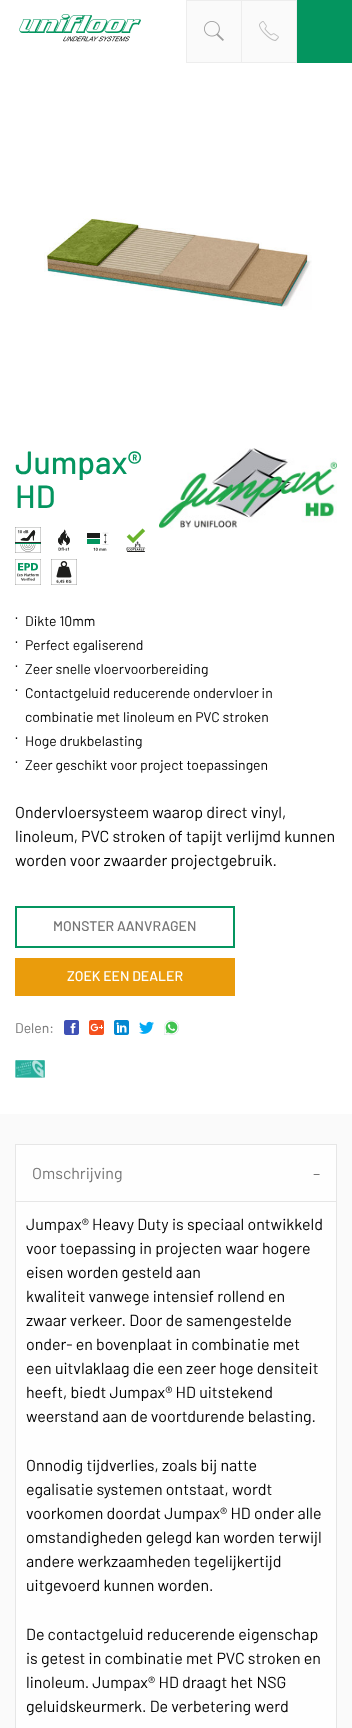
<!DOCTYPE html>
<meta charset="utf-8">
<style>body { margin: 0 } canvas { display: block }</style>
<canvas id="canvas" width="352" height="1728"></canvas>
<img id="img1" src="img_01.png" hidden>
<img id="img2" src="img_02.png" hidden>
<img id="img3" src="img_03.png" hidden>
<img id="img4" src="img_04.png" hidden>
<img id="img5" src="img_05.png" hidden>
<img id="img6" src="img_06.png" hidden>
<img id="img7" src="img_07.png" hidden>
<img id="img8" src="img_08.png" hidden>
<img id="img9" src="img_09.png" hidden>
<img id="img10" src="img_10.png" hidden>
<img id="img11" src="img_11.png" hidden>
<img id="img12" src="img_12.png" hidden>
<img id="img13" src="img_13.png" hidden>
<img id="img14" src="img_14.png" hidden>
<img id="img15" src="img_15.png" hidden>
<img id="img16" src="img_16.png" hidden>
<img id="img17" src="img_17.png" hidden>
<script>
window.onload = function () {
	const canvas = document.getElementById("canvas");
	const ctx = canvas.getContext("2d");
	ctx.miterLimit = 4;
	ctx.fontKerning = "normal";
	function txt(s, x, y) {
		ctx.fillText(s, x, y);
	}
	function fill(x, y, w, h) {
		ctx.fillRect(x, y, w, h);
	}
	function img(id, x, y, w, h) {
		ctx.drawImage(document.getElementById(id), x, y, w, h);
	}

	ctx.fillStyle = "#FFFFFF";
	fill(0, 0, 352, 1728);
	img("img1", 19, 14, 122, 28);
	ctx.fillStyle = "#FAFAFA";
	fill(187, 1, 54, 61);
	img("img2", 204, 21, 20, 20);
	ctx.fillStyle = "#EDEDED";
	fill(186, 0, 55, 1);
	fill(186, 62, 55, 1);
	fill(186, 0, 1, 63);
	ctx.fillStyle = "#FAFAFA";
	fill(242, 1, 54, 61);
	img("img3", 259, 21, 20, 20);
	ctx.strokeStyle = "#EDEDED";
	ctx.strokeRect(241.5, 0.5, 55, 62);
	ctx.fillStyle = "#04955F";
	fill(297, 0, 55, 63);
	img("img4", 44, 218, 268, 92);
	img("img5", 15, 527, 26, 26);
	img("img6", 58, 529, 12, 22);
	img("img7", 87, 532, 22, 19);
	img("img8", 126, 528, 20, 24);
	img("img9", 15, 559, 26, 26);
	img("img10", 51, 559, 26, 26);
	img("img11", 159, 448, 178, 82);
	ctx.strokeStyle = "#04955F";
	ctx.lineWidth = 2;
	ctx.strokeRect(16, 907, 218, 40);
	ctx.fillStyle = "#EA9C0C";
	fill(15, 958, 220, 38);
	img("img12", 64, 1020, 15, 15);
	img("img13", 89, 1020, 15, 15);
	img("img14", 114, 1020, 15, 15);
	img("img15", 139, 1021, 15, 13);
	img("img16", 164, 1020, 15, 15);
	img("img17", 15, 1060, 30, 18);
	ctx.fillStyle = "#FAFAFA";
	fill(0, 1114, 352, 614);
	ctx.fillStyle = "#FEFEFE";
	fill(16, 1145, 320, 583);
	ctx.fillStyle = "#E6E6E6";
	fill(15, 1144, 322, 1);
	fill(336, 1144, 1, 57);
	fill(15, 1144, 1, 57);
	fill(15, 1201, 322, 1);
	fill(336, 1201, 1, 527);
	fill(15, 1201, 1, 527);
	ctx.font = "500 32px Barlow";
	ctx.fillStyle = "#04955F";
	txt("Jumpax®", 15, 474);
	txt("HD", 15, 508);
	ctx.font = "14px Barlow";
	ctx.fillStyle = "#000000";
	txt("·", 15, 622);
	txt("Dikte 10mm", 25, 626);
	txt("·", 15, 646);
	txt("Perfect egaliserend", 25, 650);
	txt("·", 15, 670);
	txt("Zeer snelle vloervoorbereiding", 25, 674);
	txt("·", 15, 694);
	txt("Contactgeluid reducerende ondervloer in", 25, 698);
	txt("combinatie met linoleum en PVC stroken", 25, 722);
	txt("·", 15, 742);
	txt("Hoge drukbelasting", 25, 746);
	txt("·", 15, 766);
	txt("Zeer geschikt voor project toepassingen", 25, 770);
	ctx.font = "16px Barlow";
	txt("Ondervloersysteem waarop direct vinyl,", 15, 818);
	txt("linoleum, PVC stroken of tapijt verlijmd kunnen", 15, 842);
	txt("worden voor zwaarder projectgebruik.", 15, 866);
	ctx.font = "500 14px Barlow";
	ctx.fillStyle = "#757575";
	txt("MONSTER AANVRAGEN", 53, 931);
	ctx.fillStyle = "#FFFFFF";
	txt("ZOEK EEN DEALER", 67, 981);
	ctx.font = "14px Barlow";
	ctx.fillStyle = "#757575";
	txt("Delen:", 15, 1033);
	ctx.font = "16px Barlow";
	txt("Omschrijving", 32, 1179);
	txt("–", 313, 1179);
	ctx.fillStyle = "#000000";
	txt("Jumpax® Heavy Duty is speciaal ontwikkeld", 26, 1230);
	txt("voor toepassing in projecten waar hogere", 26, 1254);
	txt("eisen worden gesteld aan", 26, 1278);
	txt("kwaliteit vanwege intensief rollend en", 26, 1302);
	txt("zwaar verkeer. Door de samengestelde", 26, 1326);
	txt("onder- en bovenplaat in combinatie met", 26, 1350);
	txt("een uitvlaklaag die een zeer hoge densiteit", 26, 1374);
	txt("heeft, biedt Jumpax® HD uitstekend", 26, 1398);
	txt("weerstand aan de voortdurende belasting.", 26, 1422);
	txt("Onnodig tijdverlies, zoals bij natte", 26, 1471);
	txt("egalisatie systemen ontstaat, wordt", 26, 1495);
	txt("voorkomen doordat Jumpax® HD onder alle", 26, 1519);
	txt("omstandigheden gelegd kan worden terwijl", 26, 1543);
	txt("andere werkzaamheden tegelijkertijd", 26, 1567);
	txt("uitgevoerd kunnen worden.", 26, 1591);
	txt("De contactgeluid reducerende eigenschap", 26, 1640);
	txt("is getest in combinatie met PVC stroken en", 26, 1664);
	txt("linoleum. Jumpax® HD draagt het NSG", 26, 1688);
	txt("geluidskeurmerk. De verbetering werd", 26, 1712);
};
</script>
